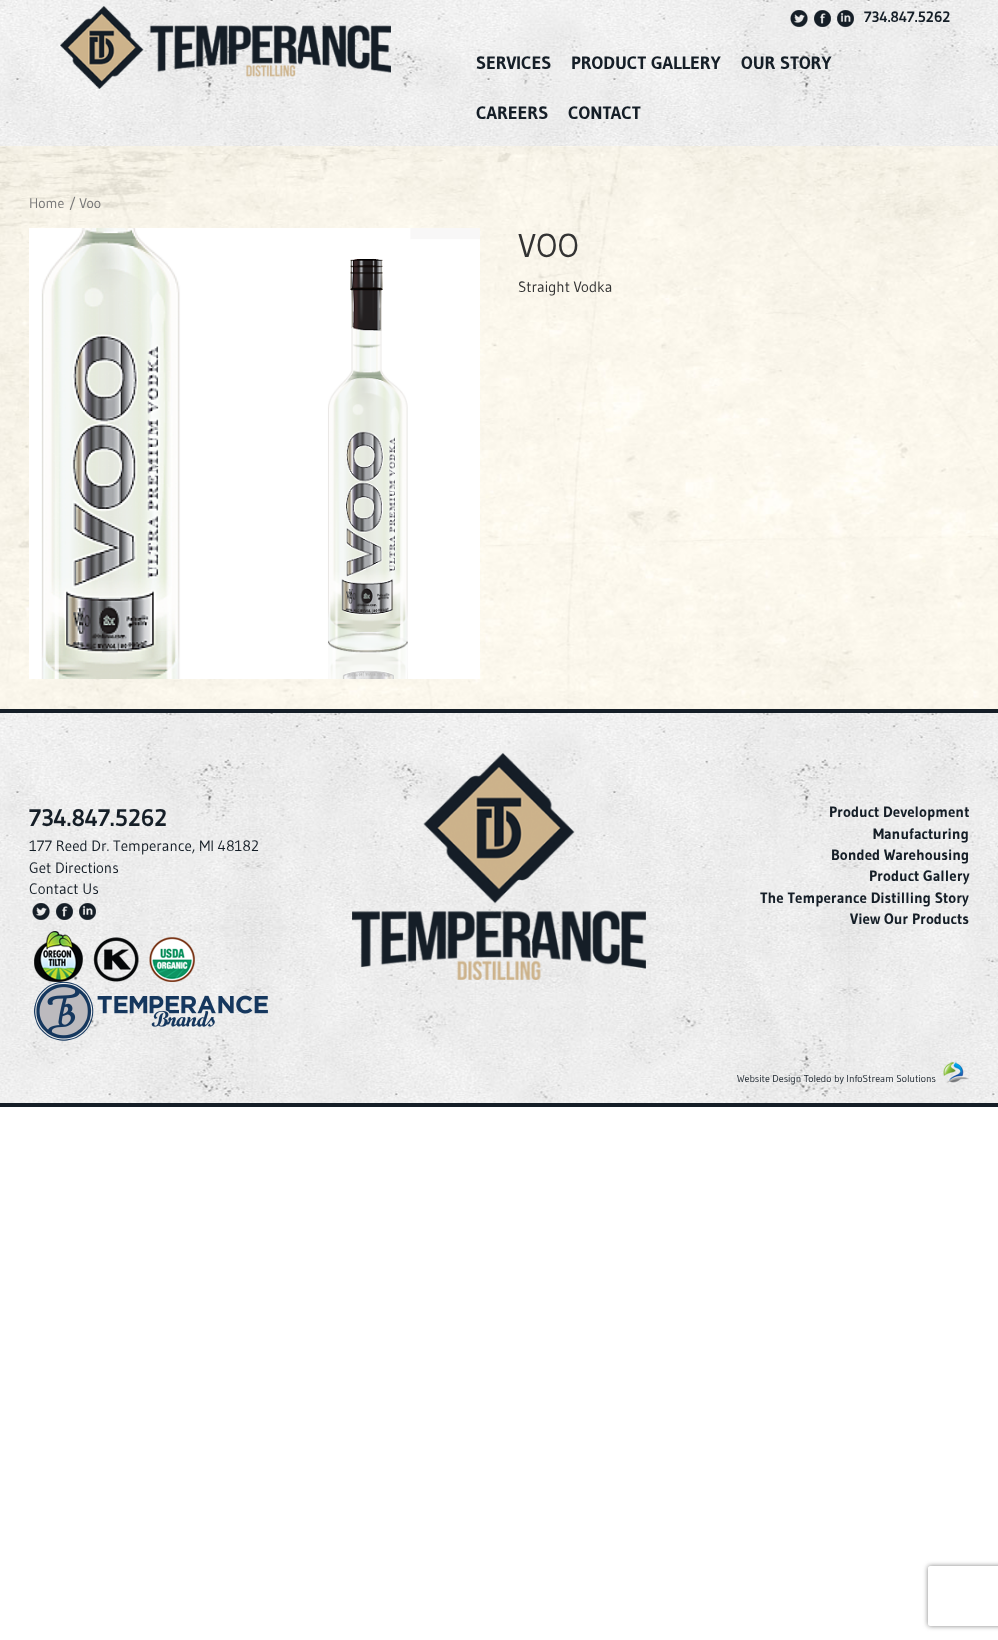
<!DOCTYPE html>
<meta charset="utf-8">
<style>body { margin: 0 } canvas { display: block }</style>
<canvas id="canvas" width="998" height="1640"></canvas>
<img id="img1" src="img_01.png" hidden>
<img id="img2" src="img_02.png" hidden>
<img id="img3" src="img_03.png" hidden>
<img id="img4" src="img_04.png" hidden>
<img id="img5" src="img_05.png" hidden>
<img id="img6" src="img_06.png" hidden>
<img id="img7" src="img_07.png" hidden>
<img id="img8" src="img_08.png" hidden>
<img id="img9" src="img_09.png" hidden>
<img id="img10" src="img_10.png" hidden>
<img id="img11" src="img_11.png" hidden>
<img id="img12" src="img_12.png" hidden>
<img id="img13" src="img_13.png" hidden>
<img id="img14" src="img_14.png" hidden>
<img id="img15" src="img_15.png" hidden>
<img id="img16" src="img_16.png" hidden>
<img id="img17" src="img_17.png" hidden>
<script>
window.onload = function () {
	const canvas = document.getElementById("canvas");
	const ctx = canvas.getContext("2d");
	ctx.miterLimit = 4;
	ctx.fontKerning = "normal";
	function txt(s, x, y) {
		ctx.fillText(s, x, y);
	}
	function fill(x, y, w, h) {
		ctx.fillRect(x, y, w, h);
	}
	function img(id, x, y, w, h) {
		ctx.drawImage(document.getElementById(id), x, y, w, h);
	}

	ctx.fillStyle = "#FFFFFF";
	fill(0, 0, 998, 1640);
	img("img1", 0, 0, 998, 146);
	img("img2", 60, 6, 331, 83);
	img("img3", 790, 10, 18, 17);
	img("img4", 814, 10, 17, 17);
	img("img5", 837, 10, 17, 17);
	img("img6", 0, 146, 998, 563);
	img("img7", 29, 228, 451, 451);
	img("img8", 0, 713, 998, 390);
	ctx.fillStyle = "#151E27";
	fill(0, 709, 998, 4);
	fill(0, 1103, 998, 4);
	img("img9", 32, 903, 18, 17);
	img("img10", 56, 903, 17, 17);
	img("img11", 79, 903, 17, 17);
	img("img12", 34, 931, 49, 51);
	img("img13", 93, 937, 46, 45);
	img("img14", 149, 937, 46, 45);
	img("img15", 34, 982, 234, 59);
	img("img16", 352, 753, 294, 227);
	img("img17", 943, 1062, 26, 21);
	ctx.save();
	ctx.beginPath();
	ctx.moveTo(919, 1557);
	ctx.lineTo(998, 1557);
	ctx.lineTo(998, 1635);
	ctx.lineTo(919, 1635);
	ctx.closePath();
	ctx.moveTo(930, 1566);
	ctx.lineTo(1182, 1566);
	ctx.bezierCurveTo(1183, 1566, 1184, 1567, 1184, 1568);
	ctx.lineTo(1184, 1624);
	ctx.bezierCurveTo(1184, 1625, 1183, 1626, 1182, 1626);
	ctx.lineTo(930, 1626);
	ctx.bezierCurveTo(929, 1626, 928, 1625, 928, 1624);
	ctx.lineTo(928, 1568);
	ctx.bezierCurveTo(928, 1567, 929, 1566, 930, 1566);
	ctx.closePath();
	ctx.clip("evenodd");
	ctx.fillStyle = "#808080";
	ctx.filter = "blur(2.5px)";
	ctx.beginPath();
	ctx.roundRect(928, 1566, 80, 60, 2);
	ctx.fill();
	ctx.filter = "none";
	ctx.restore();
	ctx.font = "bold 15px Gudea";
	txt("734.847.5262", 864, 22);
	ctx.font = "bold 18px Gudea";
	txt("SERVICES", 476, 69);
	txt("PRODUCT GALLERY", 571, 69);
	txt("OUR STORY", 741, 69);
	txt("CAREERS", 476, 119);
	txt("CONTACT", 568, 119);
	ctx.font = "14px Gudea";
	ctx.fillStyle = "#777777";
	txt("Home", 29, 208);
	txt("/ Voo", 69, 208);
	ctx.font = "33px Gudea";
	ctx.fillStyle = "#333333";
	txt("VOO", 518, 257);
	ctx.font = "15px Gudea";
	txt("Straight Vodka", 518, 292);
	ctx.font = "bold 24px Gudea";
	ctx.fillStyle = "#151E27";
	txt("734.847.5262", 29, 826);
	ctx.font = "15px Gudea";
	txt("177 Reed Dr. Temperance, MI 48182", 29, 851);
	txt("Get Directions", 29, 873);
	txt("Contact Us", 29, 894);
	ctx.font = "bold 15px Gudea";
	txt("Product Development", 829, 817);
	txt("Manufacturing", 873, 839);
	txt("Bonded Warehousing", 831, 860);
	txt("Product Gallery", 869, 881);
	txt("The Temperance Distilling Story", 760, 903);
	txt("View Our Products", 850, 924);
	ctx.font = "10px Gudea";
	txt("Website Design Toledo by InfoStream Solutions", 737, 1082);
};
</script>
